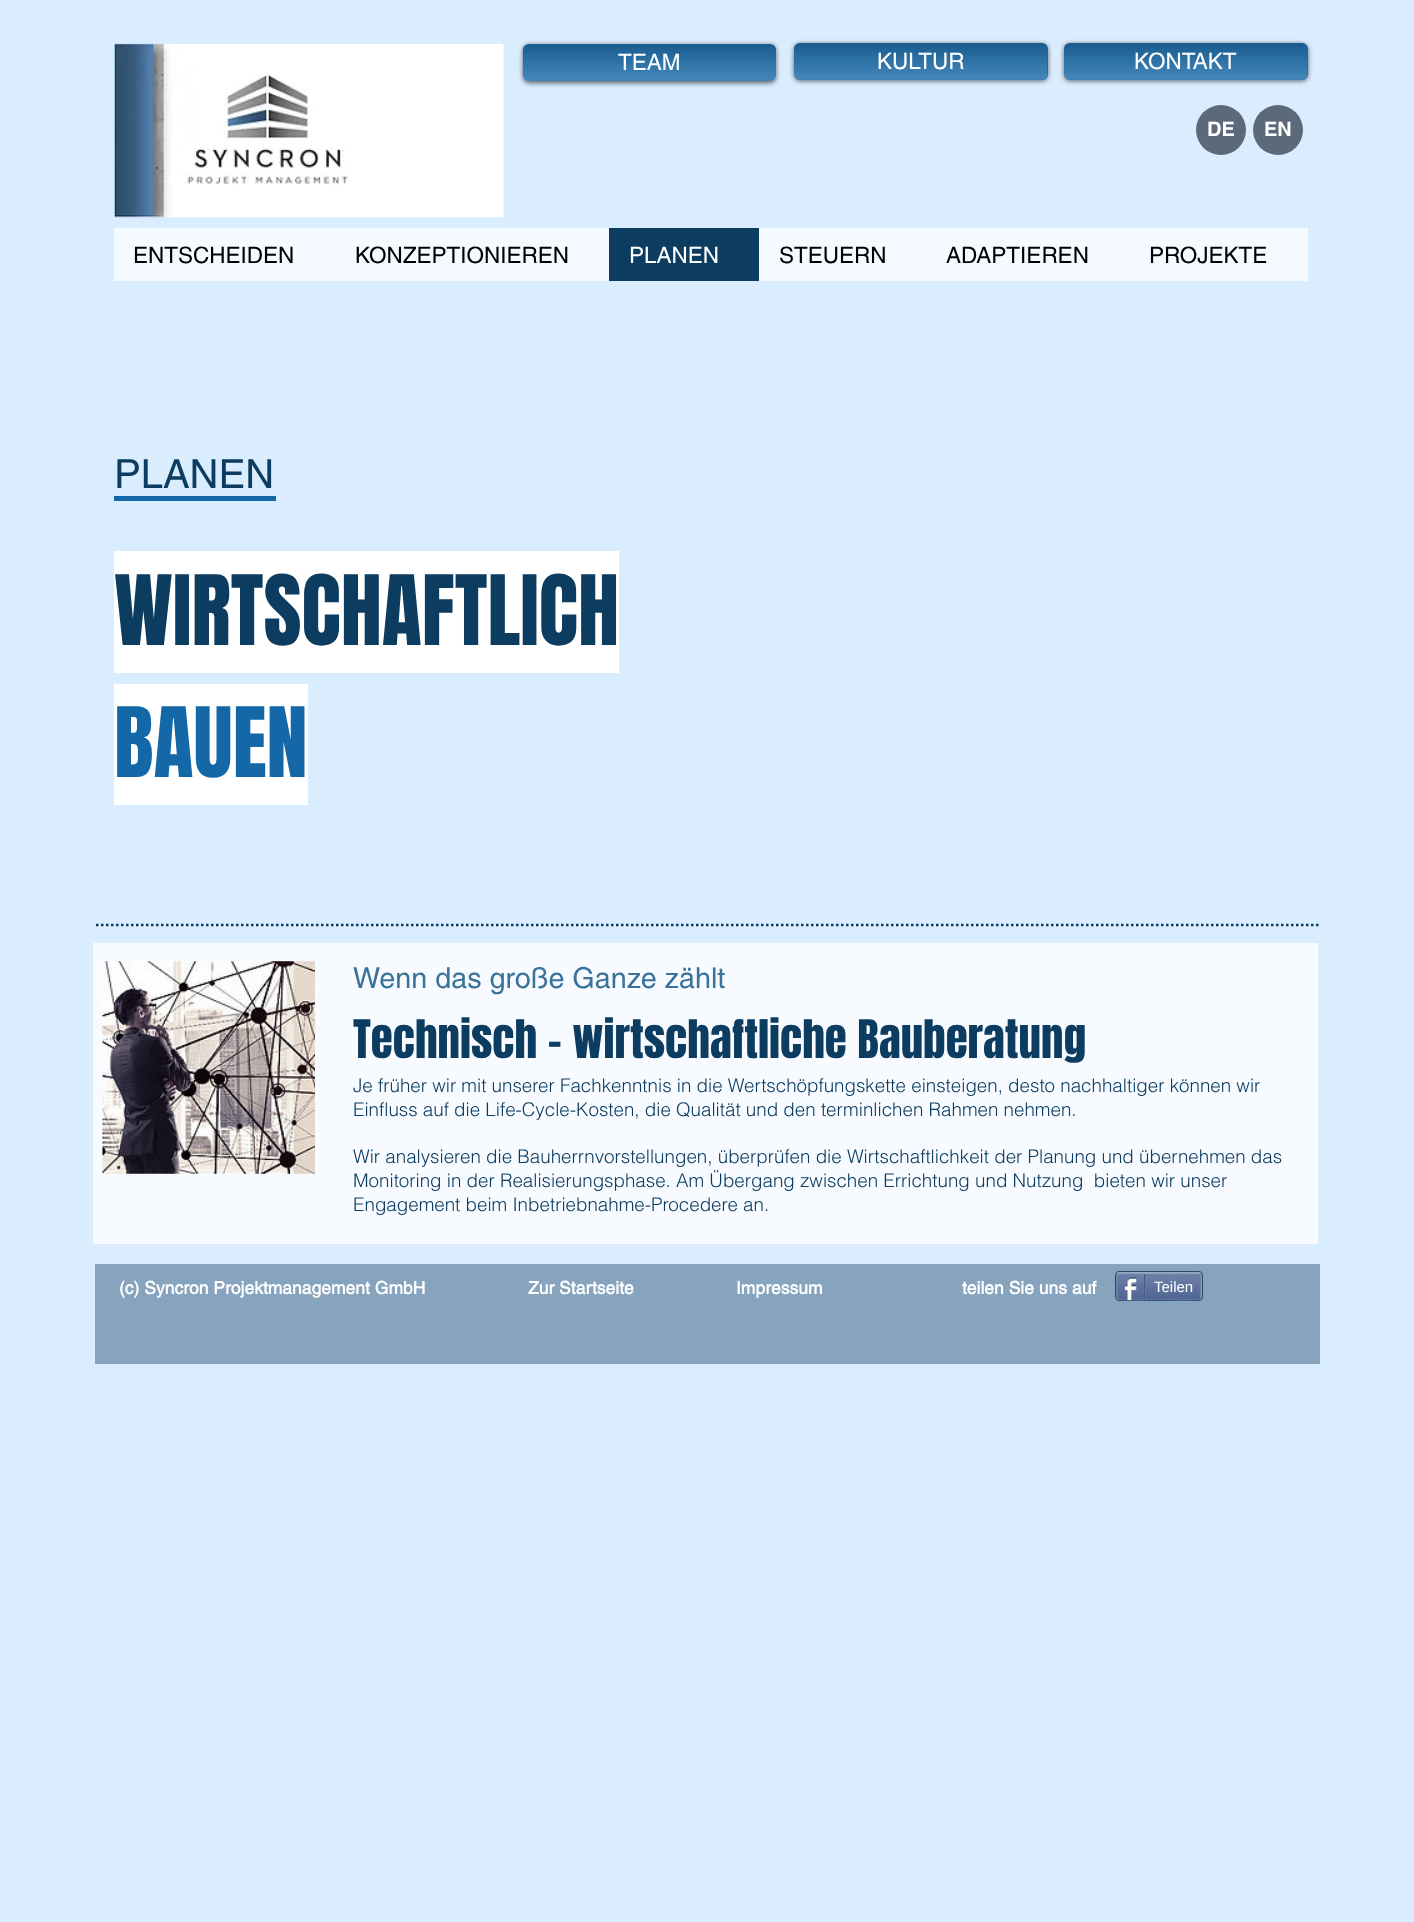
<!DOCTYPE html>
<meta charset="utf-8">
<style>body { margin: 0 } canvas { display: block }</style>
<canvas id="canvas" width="1414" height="1922"></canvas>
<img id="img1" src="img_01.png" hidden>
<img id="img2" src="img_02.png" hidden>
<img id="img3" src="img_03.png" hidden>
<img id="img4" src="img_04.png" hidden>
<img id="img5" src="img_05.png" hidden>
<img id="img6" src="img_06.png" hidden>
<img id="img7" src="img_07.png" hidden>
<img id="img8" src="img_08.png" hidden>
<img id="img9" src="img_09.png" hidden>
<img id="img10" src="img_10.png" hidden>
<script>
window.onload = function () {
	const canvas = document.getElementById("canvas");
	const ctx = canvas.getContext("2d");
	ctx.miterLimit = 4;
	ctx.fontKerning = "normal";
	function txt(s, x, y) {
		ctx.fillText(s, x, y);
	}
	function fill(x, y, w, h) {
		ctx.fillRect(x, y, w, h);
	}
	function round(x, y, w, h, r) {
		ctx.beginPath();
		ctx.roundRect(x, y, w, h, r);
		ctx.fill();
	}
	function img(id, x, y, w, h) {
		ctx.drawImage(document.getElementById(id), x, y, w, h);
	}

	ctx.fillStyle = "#DAEDFF";
	fill(0, 0, 1414, 1922);
	img("img1", 114, 43, 390, 175);
	ctx.fillStyle = "rgba(0, 0, 0, 0.6)";
	ctx.filter = "blur(2.5px)";
	ctx.beginPath();
	ctx.roundRect(523, 45, 253, 38, 6);
	ctx.fill();
	ctx.filter = "none";
	ctx.fillStyle = "#1468A8";
	round(523, 44, 253, 37, 6);
	img("img2", 522, 44, 254, 32);
	img("img3", 523, 44, 253, 37);
	ctx.fillStyle = "rgba(0, 0, 0, 0.6)";
	ctx.filter = "blur(2.5px)";
	ctx.beginPath();
	ctx.roundRect(794, 44, 254, 37, 6);
	ctx.fill();
	ctx.filter = "none";
	ctx.fillStyle = "#1468A8";
	round(794, 43, 254, 37, 6);
	img("img4", 794, 42, 254, 32);
	img("img5", 794, 43, 254, 37);
	ctx.fillStyle = "rgba(0, 0, 0, 0.6)";
	ctx.filter = "blur(2.5px)";
	ctx.beginPath();
	ctx.roundRect(1064, 44, 244, 37, 6);
	ctx.fill();
	ctx.filter = "none";
	ctx.fillStyle = "#1468A8";
	round(1064, 43, 244, 37, 6);
	img("img6", 1064, 42, 244, 32);
	img("img7", 1064, 43, 244, 37);
	ctx.fillStyle = "#5C697B";
	ctx.beginPath();
	ctx.arc(1221, 130, 25, 0, Math.PI * 2);
	ctx.fill();
	ctx.beginPath();
	ctx.arc(1278, 130, 25, 0, Math.PI * 2);
	ctx.fill();
	ctx.fillStyle = "#F4FAFF";
	fill(114, 228, 1194, 53);
	ctx.fillStyle = "#0C3C60";
	fill(609, 228, 150, 53);
	ctx.fillStyle = "#1468A8";
	fill(114, 496, 162, 5);
	ctx.fillStyle = "#FFFFFF";
	fill(114, 551, 505, 122);
	fill(114, 684, 194, 121);
	ctx.beginPath();
	ctx.moveTo(96, 925);
	ctx.lineTo(1319, 925);
	ctx.strokeStyle = "#0C3C60";
	ctx.lineWidth = 2.5;
	ctx.setLineDash([2.5, 2.5]);
	ctx.stroke();
	ctx.fillStyle = "#F7FBFF";
	fill(93, 943, 1225, 301);
	img("img8", 102, 961, 213, 213);
	ctx.fillStyle = "#86A4BE";
	fill(95, 1264, 1225, 100);
	ctx.beginPath();
	ctx.roundRect(1115.5, 1271.5, 87, 29, 3.5);
	ctx.strokeStyle = "#2D4565";
	ctx.lineWidth = 1;
	ctx.setLineDash([]);
	ctx.stroke();
	img("img9", 1116, 1273, 86, 27);
	ctx.beginPath();
	ctx.moveTo(1117.5, 1273.5);
	ctx.bezierCurveTo(1119, 1272, 1154, 1273, 1159, 1273);
	ctx.bezierCurveTo(1163.5, 1273, 1198.5, 1272, 1200, 1273.5);
	ctx.strokeStyle = "#9AABC6";
	ctx.lineWidth = 1.2;
	ctx.stroke();
	ctx.beginPath();
	ctx.moveTo(1200, 1273.5);
	ctx.lineTo(1200.5, 1275);
	ctx.lineTo(1200.5, 1297.5);
	ctx.lineTo(1200, 1299);
	ctx.strokeStyle = "#6F83AD";
	ctx.stroke();
	ctx.beginPath();
	ctx.moveTo(1200, 1299);
	ctx.bezierCurveTo(1198.5, 1300.5, 1163.5, 1299.5, 1159, 1299.5);
	ctx.bezierCurveTo(1154, 1299.5, 1119, 1300.5, 1117.5, 1299);
	ctx.strokeStyle = "#6176A3";
	ctx.stroke();
	ctx.beginPath();
	ctx.moveTo(1117.5, 1299);
	ctx.lineTo(1117, 1297.5);
	ctx.lineTo(1117, 1275);
	ctx.lineTo(1117.5, 1273.5);
	ctx.strokeStyle = "#6F83AD";
	ctx.stroke();
	img("img10", 1124, 1277, 13, 23);
	ctx.fillStyle = "#425E85";
	fill(1144, 1274, 1, 26);
	ctx.fillStyle = "#6176A3";
	fill(1145, 1274, 1, 25);
	ctx.font = "22.5px helvetica";
	ctx.fillStyle = "#FFFFFF";
	txt("TEAM", 618, 70);
	txt("KULTUR", 877, 69);
	txt("KONTAKT", 1134, 69);
	ctx.font = "bold 20px helvetica";
	txt("DE", 1207, 136);
	txt("EN", 1264, 136);
	ctx.font = "22.5px helvetica";
	ctx.fillStyle = "#000000";
	txt("ENTSCHEIDEN", 133, 263);
	txt("KONZEPTIONIEREN", 355, 263);
	ctx.fillStyle = "#FFFFFF";
	txt("PLANEN", 629, 263);
	ctx.fillStyle = "#000000";
	txt("STEUERN", 779, 263);
	txt("ADAPTIEREN", 946, 263);
	txt("PROJEKTE", 1149, 263);
	ctx.font = "40px helvetica";
	ctx.fillStyle = "#0C3C60";
	txt("PLANEN", 114, 488);
	ctx.font = "82.5px Anton";
	txt("WIRTSCHAFTLICH", 114, 645);
	ctx.fillStyle = "#1468A8";
	txt("BAUEN", 114, 777);
	ctx.font = "28.75px helvetica";
	ctx.fillStyle = "#39729B";
	txt("Wenn das große Ganze zählt", 353, 988);
	ctx.font = "45px Anton";
	ctx.fillStyle = "#0C3C60";
	txt("Technisch - wirtschaftliche Bauberatung", 353, 1058);
	ctx.font = "300 18.75px helvetica";
	txt("Je früher wir mit unserer Fachkenntnis in die Wertschöpfungskette einsteigen, desto nachhaltiger können wir", 353, 1092);
	txt("Einfluss auf die Life-Cycle-Kosten, die Qualität und den terminlichen Rahmen nehmen.", 353, 1116);
	txt("Wir analysieren die Bauherrnvorstellungen, überprüfen die Wirtschaftlichkeit der Planung und übernehmen das", 353, 1163);
	txt("Monitoring in der Realisierungsphase. Am Übergang zwischen Errichtung und Nutzung  bieten wir unser", 353, 1187);
	txt("Engagement beim Inbetriebnahme-Procedere an.", 353, 1211);
	ctx.font = "bold 17.5px 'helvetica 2'";
	ctx.fillStyle = "#FFFFFF";
	txt("(c) Syncron Projektmanagement GmbH", 119, 1294);
	txt("Zur Startseite", 528, 1294);
	txt("Impressum", 736, 1294);
	txt("teilen Sie uns auf", 962, 1294);
	ctx.font = "15px Liberation Sans";
	txt("Teilen", 1154, 1292);
};
</script>
